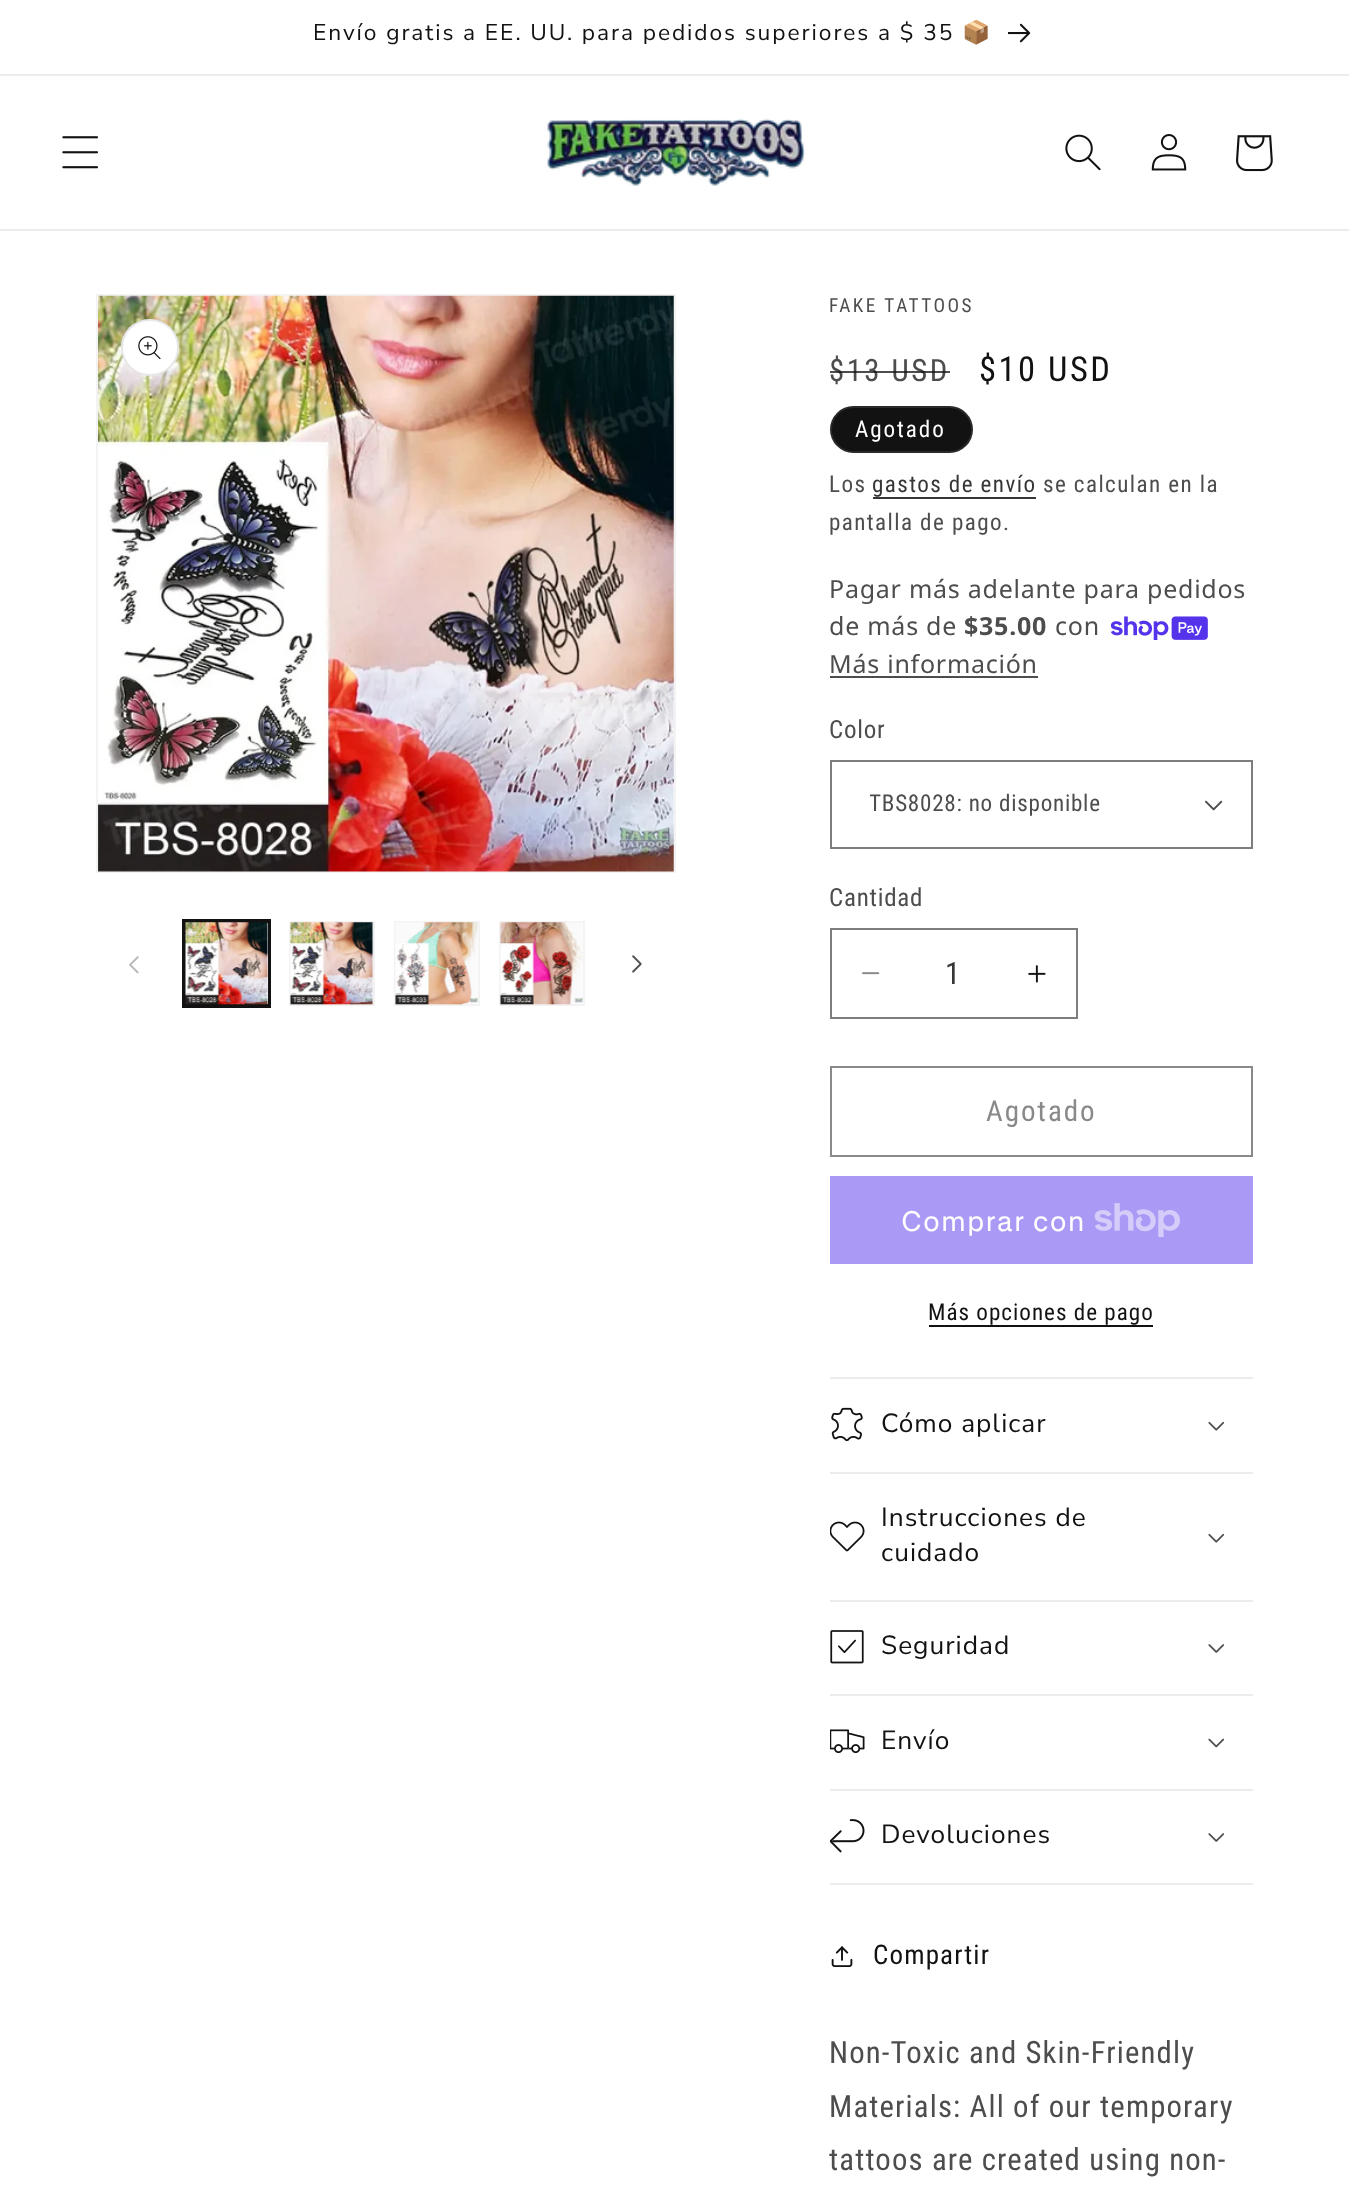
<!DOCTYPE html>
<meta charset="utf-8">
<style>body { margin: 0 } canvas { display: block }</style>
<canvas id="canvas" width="1349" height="2202"></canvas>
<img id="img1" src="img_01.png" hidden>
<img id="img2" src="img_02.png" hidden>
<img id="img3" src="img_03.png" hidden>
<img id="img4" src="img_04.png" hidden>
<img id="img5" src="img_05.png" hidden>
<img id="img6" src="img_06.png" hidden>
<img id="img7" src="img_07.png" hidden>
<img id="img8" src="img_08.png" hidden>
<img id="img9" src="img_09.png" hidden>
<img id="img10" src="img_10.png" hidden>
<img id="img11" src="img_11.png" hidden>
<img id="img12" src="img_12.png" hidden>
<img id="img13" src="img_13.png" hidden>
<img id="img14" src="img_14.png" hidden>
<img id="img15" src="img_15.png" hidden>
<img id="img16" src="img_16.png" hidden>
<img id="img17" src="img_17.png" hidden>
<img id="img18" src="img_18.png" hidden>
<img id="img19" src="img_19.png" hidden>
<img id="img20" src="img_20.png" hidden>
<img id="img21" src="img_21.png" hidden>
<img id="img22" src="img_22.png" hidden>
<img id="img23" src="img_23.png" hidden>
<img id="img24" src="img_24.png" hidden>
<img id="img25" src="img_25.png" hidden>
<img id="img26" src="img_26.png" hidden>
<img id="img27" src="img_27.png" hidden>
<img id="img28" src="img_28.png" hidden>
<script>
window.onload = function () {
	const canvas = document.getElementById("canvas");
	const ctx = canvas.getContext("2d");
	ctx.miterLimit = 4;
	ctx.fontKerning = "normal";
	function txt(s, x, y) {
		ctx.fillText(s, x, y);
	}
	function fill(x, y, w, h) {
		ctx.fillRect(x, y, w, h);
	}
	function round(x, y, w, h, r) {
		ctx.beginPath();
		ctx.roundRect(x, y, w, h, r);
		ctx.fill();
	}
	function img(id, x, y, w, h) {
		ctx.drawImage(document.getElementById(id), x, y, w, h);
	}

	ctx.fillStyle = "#FFFFFF";
	fill(0, 0, 1349, 2202);
	ctx.fillStyle = "#ECECEC";
	fill(0, 74, 1349, 2);
	img("img1", 1008, 23, 23, 20);
	fill(0, 229, 1349, 2);
	img("img2", 62, 136, 36, 33);
	img("img3", 547, 118, 259, 68);
	img("img4", 1065, 134, 36, 37);
	img("img5", 1151, 134, 36, 37);
	img("img6", 1236, 135, 37, 37);
	ctx.strokeStyle = "#F3F3F3";
	ctx.lineWidth = 2;
	ctx.strokeRect(97, 295, 578, 577);
	img("img7", 98, 295, 576, 577);
	ctx.fillStyle = "#FFFFFF";
	round(121, 319, 58, 57, 28.5);
	ctx.beginPath();
	ctx.roundRect(122, 320, 56, 55, 27.5);
	ctx.strokeStyle = "rgba(18, 18, 18, 0.1)";
	ctx.stroke();
	img("img8", 138, 336, 23, 24);
	img("img9", 129, 956, 10, 18);
	ctx.strokeStyle = "#121212";
	ctx.strokeRect(183, 920, 87, 87);
	ctx.strokeRect(185, 922, 84, 83);
	img("img10", 185, 922, 84, 83);
	ctx.strokeStyle = "#F3F3F3";
	ctx.strokeRect(290, 922, 84, 83);
	img("img11", 290, 922, 84, 83);
	ctx.strokeRect(395, 922, 84, 83);
	img("img12", 395, 922, 83, 83);
	ctx.strokeRect(500, 922, 84, 83);
	img("img13", 500, 922, 83, 83);
	img("img14", 632, 955, 10, 18);
	ctx.fillStyle = "#121212";
	round(830, 406, 143, 47, 23.5);
	ctx.beginPath();
	ctx.roundRect(831, 407, 141, 45, 22.5);
	ctx.strokeStyle = "rgba(255, 255, 255, 0.1)";
	ctx.stroke();
	ctx.fillStyle = "#363636";
	fill(873, 497, 163, 2);
	img("img15", 1110, 616, 98, 24);
	ctx.fillStyle = "#4D4D4D";
	fill(830, 676, 208, 2);
	img("img16", 1205, 800, 18, 11);
	ctx.strokeStyle = "#7D7D7D";
	ctx.strokeRect(831, 761, 421, 87);
	img("img17", 862, 972, 18, 3);
	img("img18", 1028, 965, 18, 18);
	ctx.strokeRect(831, 929, 246, 89);
	ctx.strokeStyle = "#898989";
	ctx.strokeRect(831, 1067, 421, 89);
	ctx.fillStyle = "#AA99F5";
	fill(830, 1176, 423, 88);
	img("img19", 1094, 1203, 86, 34);
	ctx.fillStyle = "#121212";
	fill(929, 1325, 224, 2);
	ctx.fillStyle = "#ECECEC";
	fill(830, 1377, 423, 2);
	fill(830, 1472, 423, 2);
	img("img20", 831, 1407, 32, 35);
	img("img21", 1208, 1421, 17, 10);
	fill(830, 1600, 423, 2);
	img("img22", 830, 1521, 35, 31);
	img("img21", 1208, 1533, 17, 10);
	fill(830, 1694, 423, 2);
	img("img23", 830, 1630, 34, 34);
	img("img24", 1208, 1644, 16, 9);
	fill(830, 1789, 423, 2);
	img("img25", 830, 1729, 35, 25);
	img("img26", 1208, 1738, 17, 10);
	fill(830, 1883, 423, 2);
	img("img27", 830, 1819, 35, 34);
	img("img24", 1208, 1833, 16, 9);
	img("img28", 831, 1946, 22, 21);
	ctx.letterSpacing = "1.93px";
	ctx.font = "22.75px Nunito Sans";
	ctx.fillStyle = "#121212";
	txt("Envío gratis a EE. UU. para pedidos superiores a $ 35", 313, 40);
	ctx.font = "22.75px Noto Color Emoji";
	txt("📦", 962, 40);
	ctx.letterSpacing = "2.5px";
	ctx.font = "19.25px Roboto Condensed";
	ctx.fillStyle = "#4D4D4D";
	txt("FAKE TATTOOS", 829, 312);
	ctx.font = "30.75px Roboto Condensed";
	txt("$13 USD", 829, 381);
	ctx.fillStyle = "rgba(18, 18, 18, 0.75)";
	fill(830, 371, 120, 2);
	ctx.font = "34.5px Roboto Condensed";
	ctx.fillStyle = "#121212";
	txt("$10 USD", 979, 381);
	ctx.letterSpacing = "1.93px";
	ctx.font = "23.1px Roboto Condensed";
	ctx.fillStyle = "#FFFFFF";
	txt("Agotado", 855, 437);
	ctx.letterSpacing = "1.4px";
	ctx.fillStyle = "#4D4D4D";
	txt("Los", 829, 492);
	ctx.fillStyle = "#363636";
	txt("gastos de envío", 872, 492);
	ctx.fillStyle = "#4D4D4D";
	txt("se calculan en la", 1043, 492);
	txt("pantalla de pago.", 829, 530);
	ctx.letterSpacing = "0.75px";
	ctx.font = "25px Noto Sans";
	txt("Pagar más adelante para pedidos", 829, 598);
	txt("de más de", 829, 635);
	ctx.font = "bold 25px Noto Sans";
	txt("$35.00", 964, 635);
	ctx.font = "25px Noto Sans";
	txt("con", 1055, 635);
	txt("Más información", 829, 673);
	ctx.font = "25px Roboto Condensed";
	txt("Color", 829, 738);
	ctx.save();
	ctx.beginPath();
	ctx.rect(870, 786, 322, 37);
	ctx.clip();
	ctx.font = "23.1px Roboto Condensed";
	txt("TBS8028: no disponible", 869, 811);
	ctx.restore();
	txt("Cantidad", 829, 906);
	ctx.letterSpacing = "0px";
	ctx.font = "30.75px Roboto Condensed";
	ctx.fillStyle = "#363636";
	txt("1", 945, 984);
	ctx.letterSpacing = "1.93px";
	ctx.font = "29px Roboto Condensed";
	ctx.fillStyle = "#898989";
	txt("Agotado", 986, 1121);
	ctx.letterSpacing = "1.15px";
	ctx.font = "28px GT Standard";
	ctx.fillStyle = "#FFFFFF";
	txt("Comprar con", 901, 1231);
	ctx.letterSpacing = "1px";
	ctx.font = "23.1px Roboto Condensed";
	ctx.fillStyle = "#121212";
	txt("Más opciones de pago", 928, 1320);
	ctx.font = "26.25px Nunito Sans";
	txt("Cómo aplicar", 881, 1432);
	txt("Instrucciones de", 881, 1526);
	txt("cuidado", 881, 1561);
	txt("Seguridad", 881, 1654);
	txt("Envío", 881, 1749);
	txt("Devoluciones", 881, 1843);
	ctx.letterSpacing = "1.15px";
	ctx.font = "27px Roboto Condensed";
	txt("Compartir", 873, 1964);
	ctx.font = "30.75px Roboto Condensed";
	ctx.fillStyle = "#4D4D4D";
	txt("Non-Toxic and Skin-Friendly", 829, 2063);
	txt("Materials: All of our temporary", 829, 2117);
	txt("tattoos are created using non-", 829, 2170);
};
</script>
